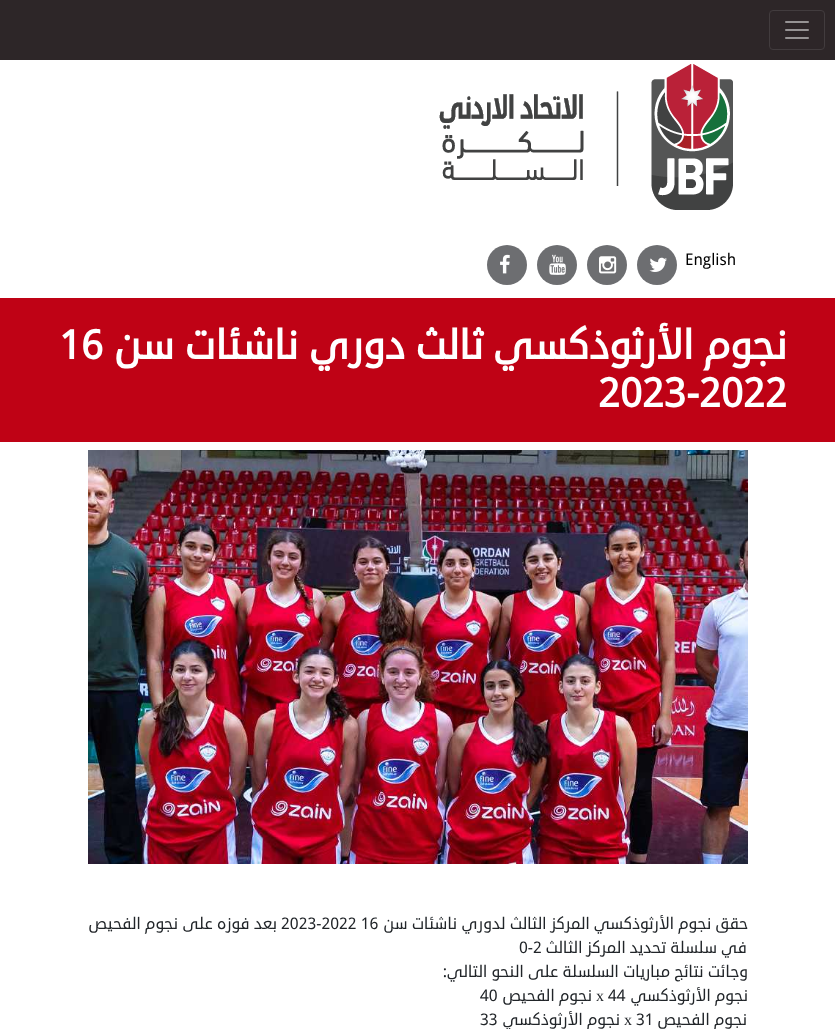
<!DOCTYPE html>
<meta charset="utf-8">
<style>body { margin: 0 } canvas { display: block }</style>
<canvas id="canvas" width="835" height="1029"></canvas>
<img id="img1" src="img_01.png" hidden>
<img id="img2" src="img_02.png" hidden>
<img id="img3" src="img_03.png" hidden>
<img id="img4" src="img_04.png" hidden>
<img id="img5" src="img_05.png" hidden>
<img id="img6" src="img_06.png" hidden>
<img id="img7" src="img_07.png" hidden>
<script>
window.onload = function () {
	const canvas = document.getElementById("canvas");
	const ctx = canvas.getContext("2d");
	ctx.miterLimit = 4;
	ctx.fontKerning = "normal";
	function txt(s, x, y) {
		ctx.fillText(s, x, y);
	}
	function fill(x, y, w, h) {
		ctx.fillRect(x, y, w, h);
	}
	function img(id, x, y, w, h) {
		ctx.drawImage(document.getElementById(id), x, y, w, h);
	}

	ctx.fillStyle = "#FFFFFF";
	fill(0, 0, 835, 1029);
	ctx.fillStyle = "#2D2628";
	fill(0, 0, 835, 60);
	ctx.beginPath();
	ctx.roundRect(769.5, 10.5, 55, 39, 3.5);
	ctx.strokeStyle = "#423C3E";
	ctx.stroke();
	img("img1", 785, 21, 24, 18);
	img("img2", 439, 64, 294, 146);
	ctx.fillStyle = "#6D6E71";
	ctx.beginPath();
	ctx.arc(657, 265, 20, 0, Math.PI * 2);
	ctx.fill();
	img("img3", 649, 257, 18, 15);
	ctx.beginPath();
	ctx.arc(607, 265, 20, 0, Math.PI * 2);
	ctx.fill();
	img("img4", 599, 256, 18, 18);
	ctx.beginPath();
	ctx.arc(557, 265, 20, 0, Math.PI * 2);
	ctx.fill();
	img("img5", 549, 254, 17, 21);
	ctx.beginPath();
	ctx.arc(507, 265, 20, 0, Math.PI * 2);
	ctx.fill();
	img("img6", 500, 254, 10, 20);
	ctx.fillStyle = "#BF0215";
	fill(0, 298, 835, 144);
	img("img7", 88, 450, 660, 414);
	ctx.font = "16px Droid Sans";
	ctx.fillStyle = "#000000";
	txt("English", 685, 265);
	ctx.direction = "rtl";
	ctx.font = "bold 40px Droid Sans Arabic";
	ctx.fillStyle = "#FFFFFF";
	txt("نجوم الأرثوذكسي ثالث دوري ناشئات سن", 787, 359);
	ctx.direction = "ltr";
	txt("16", 59, 359);
	txt("2023-2022", 598, 407);
	ctx.direction = "rtl";
	ctx.font = "16px Droid Sans Arabic";
	ctx.fillStyle = "#212529";
	txt("حقق نجوم الأرثوذكسي المركز الثالث لدوري ناشئات سن", 748, 929);
	ctx.direction = "ltr";
	txt("2023-2022 16", 281, 929);
	ctx.direction = "rtl";
	txt("بعد فوزه على نجوم الفحيص", 277, 929);
	txt("في سلسلة تحديد المركز الثالث", 747, 953);
	ctx.direction = "ltr";
	txt("0-2", 519, 953);
	ctx.direction = "rtl";
	txt("وجائت نتائج مباريات السلسلة على النحو التالي:", 748, 977);
	txt("نجوم الأرثوذكسي", 748, 1001);
	ctx.direction = "ltr";
	txt("44", 608, 1001);
	ctx.font = "16px Liberation Serif";
	txt("x", 596, 1001);
	ctx.direction = "rtl";
	ctx.font = "16px Droid Sans Arabic";
	txt("نجوم الفحيص", 592, 1001);
	ctx.direction = "ltr";
	txt("40", 480, 1001);
	ctx.direction = "rtl";
	txt("نجوم الفحيص", 747, 1025);
	ctx.direction = "ltr";
	txt("31", 636, 1025);
	ctx.font = "16px Liberation Serif";
	txt("x", 624, 1025);
	ctx.direction = "rtl";
	ctx.font = "16px Droid Sans Arabic";
	txt("نجوم الأرثوذكسي", 620, 1025);
	ctx.direction = "ltr";
	txt("33", 480, 1025);
};
</script>
